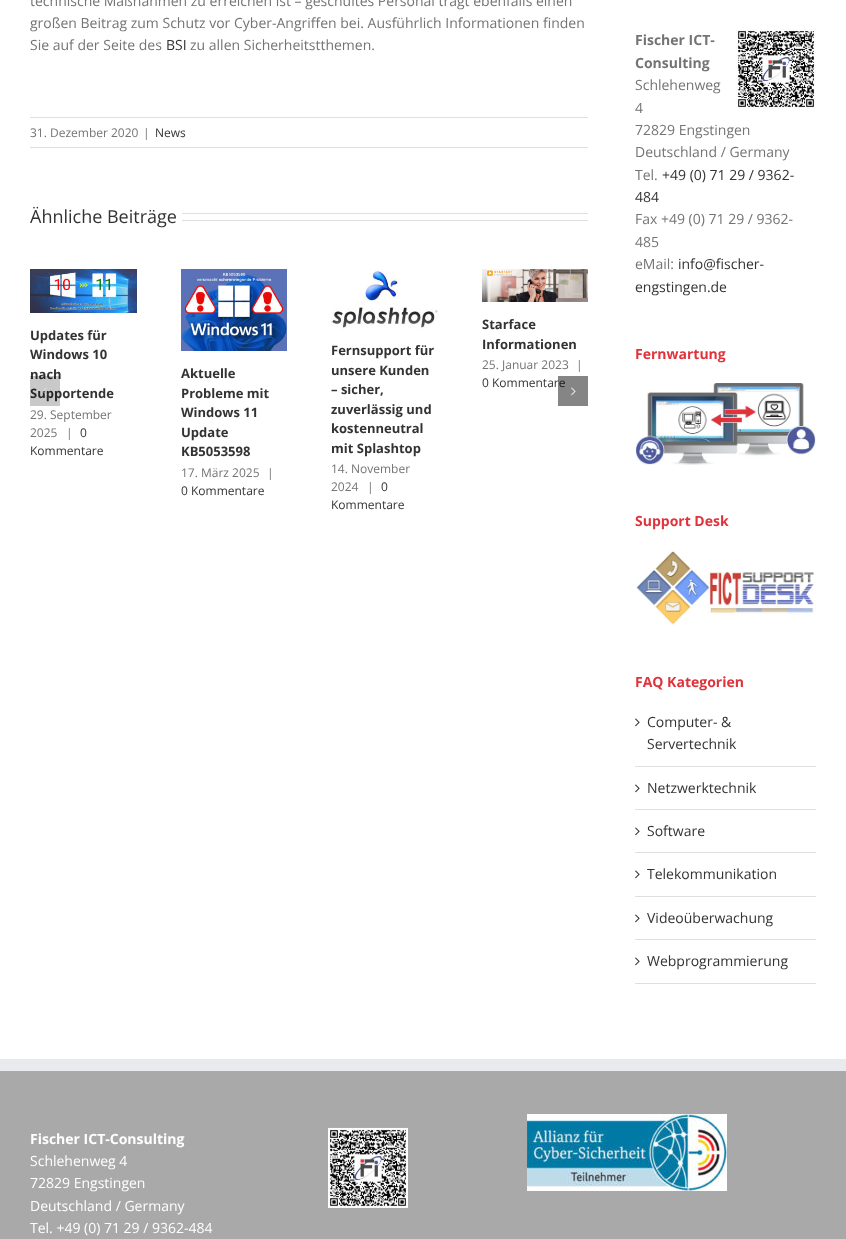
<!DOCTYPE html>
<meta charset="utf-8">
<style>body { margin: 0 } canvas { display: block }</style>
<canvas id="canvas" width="846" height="1239"></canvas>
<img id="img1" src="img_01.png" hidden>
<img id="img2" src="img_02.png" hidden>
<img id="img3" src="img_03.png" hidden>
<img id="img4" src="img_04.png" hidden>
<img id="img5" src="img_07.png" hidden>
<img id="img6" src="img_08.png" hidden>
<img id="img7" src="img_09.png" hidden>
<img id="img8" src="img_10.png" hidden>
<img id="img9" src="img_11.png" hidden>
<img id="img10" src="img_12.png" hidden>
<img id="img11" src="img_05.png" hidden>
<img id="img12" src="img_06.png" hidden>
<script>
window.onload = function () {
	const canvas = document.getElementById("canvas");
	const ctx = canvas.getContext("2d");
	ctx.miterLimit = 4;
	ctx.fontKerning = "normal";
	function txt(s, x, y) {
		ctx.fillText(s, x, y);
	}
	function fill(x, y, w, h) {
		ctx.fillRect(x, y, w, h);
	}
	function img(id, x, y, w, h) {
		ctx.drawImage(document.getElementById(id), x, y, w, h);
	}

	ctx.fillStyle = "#FFFFFF";
	fill(0, 0, 846, 1239);
	ctx.fillStyle = "#E0DEDE";
	fill(30, 117, 558, 1);
	fill(30, 147, 558, 1);
	fill(182, 213, 406, 1);
	fill(182, 220, 406, 1);
	img("img1", 30, 269, 107, 44);
	img("img2", 181, 269, 106, 82);
	img("img3", 331, 269, 107, 60);
	img("img4", 482, 269, 106, 33);
	img("img5", 736, 29, 80, 80);
	img("img6", 635, 383, 181, 82);
	img("img7", 636, 550, 180, 75);
	fill(635, 766, 181, 1);
	img("img8", 635, 718, 5, 9);
	fill(635, 809, 181, 1);
	img("img8", 635, 784, 5, 9);
	fill(635, 852, 181, 1);
	img("img8", 635, 827, 5, 9);
	fill(635, 896, 181, 1);
	img("img8", 635, 870, 5, 9);
	fill(635, 939, 181, 1);
	img("img8", 635, 914, 5, 9);
	fill(635, 983, 181, 1);
	img("img8", 635, 957, 5, 9);
	ctx.fillStyle = "#A9A9A9";
	fill(0, 1071, 846, 168);
	ctx.fillStyle = "#E9EAEE";
	fill(0, 1059, 846, 12);
	img("img9", 328, 1127, 80, 81);
	img("img10", 527, 1114, 200, 77);
	ctx.font = "14px Open Sans";
	ctx.fillStyle = "#747474";
	txt("technische Maßnahmen zu erreichen ist – geschultes Personal trägt ebenfalls einen", 30, 6);
	txt("großen Beitrag zum Schutz vor Cyber-Angriffen bei. Ausführlich Informationen finden", 30, 28);
	txt("Sie auf der Seite des", 30, 50);
	ctx.fillStyle = "#333333";
	txt("BSI", 166, 50);
	ctx.fillStyle = "#747474";
	txt("zu allen Sicherheitstthemen.", 190, 50);
	ctx.font = "12px Open Sans";
	txt("31. Dezember 2020", 30, 137);
	txt("|", 143, 137);
	ctx.fillStyle = "#333333";
	txt("News", 155, 137);
	ctx.font = "18px Open Sans";
	txt("Ähnliche Beiträge", 30, 223);
	ctx.font = "bold 13px Open Sans";
	txt("Updates für", 30, 340);
	txt("Windows 10", 30, 359);
	txt("nach", 30, 379);
	txt("Supportende", 30, 398);
	ctx.font = "12px Open Sans";
	ctx.fillStyle = "#747474";
	txt("29. September", 30, 419);
	txt("2025", 30, 437);
	txt("|", 66, 437);
	ctx.fillStyle = "#333333";
	txt("0", 80, 437);
	txt("Kommentare", 30, 455);
	ctx.font = "bold 13px Open Sans";
	txt("Aktuelle", 181, 378);
	txt("Probleme mit", 181, 398);
	txt("Windows 11", 181, 417);
	txt("Update", 181, 437);
	txt("KB5053598", 181, 456);
	ctx.font = "12px Open Sans";
	ctx.fillStyle = "#747474";
	txt("17. März 2025", 181, 477);
	txt("|", 267, 477);
	ctx.fillStyle = "#333333";
	txt("0 Kommentare", 181, 495);
	ctx.font = "bold 13px Open Sans";
	txt("Fernsupport für", 331, 355);
	txt("unsere Kunden", 331, 375);
	txt("– sicher,", 331, 394);
	txt("zuverlässig und", 331, 414);
	txt("kostenneutral", 331, 433);
	txt("mit Splashtop", 331, 453);
	ctx.font = "12px Open Sans";
	ctx.fillStyle = "#747474";
	txt("14. November", 331, 473);
	txt("2024", 331, 491);
	txt("|", 367, 491);
	ctx.fillStyle = "#333333";
	txt("0", 381, 491);
	txt("Kommentare", 331, 509);
	ctx.font = "bold 13px Open Sans";
	txt("Starface", 482, 329);
	txt("Informationen", 482, 349);
	ctx.font = "12px Open Sans";
	ctx.fillStyle = "#747474";
	txt("25. Januar 2023", 482, 369);
	txt("|", 576, 369);
	ctx.fillStyle = "#333333";
	txt("0 Kommentare", 482, 387);
	ctx.fillStyle = "rgba(0, 0, 0, 0.21)";
	fill(30, 376, 30, 30);
	img("img11", 42, 387, 5, 8);
	ctx.fillStyle = "rgba(0, 0, 0, 0.48)";
	fill(558, 376, 30, 30);
	img("img12", 571, 387, 5, 9);
	ctx.font = "bold 14px Open Sans";
	ctx.fillStyle = "#747474";
	txt("Fischer ICT-", 635, 45);
	txt("Consulting", 635, 68);
	ctx.font = "14px Open Sans";
	txt("Schlehenweg", 635, 90);
	txt("4", 635, 113);
	txt("72829 Engstingen", 635, 135);
	txt("Deutschland / Germany", 635, 157);
	txt("Tel.", 635, 180);
	ctx.fillStyle = "#333333";
	txt("+49 (0) 71 29 / 9362-", 662, 180);
	txt("484", 635, 202);
	ctx.fillStyle = "#747474";
	txt("Fax +49 (0) 71 29 / 9362-", 635, 224);
	txt("485", 635, 247);
	txt("eMail:", 635, 269);
	ctx.fillStyle = "#333333";
	txt("info@fischer-", 678, 269);
	txt("engstingen.de", 635, 292);
	ctx.font = "bold 14px Open Sans";
	ctx.fillStyle = "#E0333C";
	txt("Fernwartung", 635, 359);
	txt("Support Desk", 635, 526);
	txt("FAQ Kategorien", 635, 687);
	ctx.font = "14px Open Sans";
	ctx.fillStyle = "#333333";
	txt("Computer- &", 647, 727);
	txt("Servertechnik", 647, 749);
	txt("Netzwerktechnik", 647, 793);
	txt("Software", 647, 836);
	txt("Telekommunikation", 647, 879);
	txt("Videoüberwachung", 647, 923);
	txt("Webprogrammierung", 647, 966);
	ctx.font = "bold 14px Open Sans";
	ctx.fillStyle = "#FFFFFF";
	txt("Fischer ICT-Consulting", 30, 1144);
	ctx.font = "14px Open Sans";
	txt("Schlehenweg 4", 30, 1166);
	txt("72829 Engstingen", 30, 1188);
	txt("Deutschland / Germany", 30, 1211);
	txt("Tel. +49 (0) 71 29 / 9362-484", 30, 1233);
};
</script>
